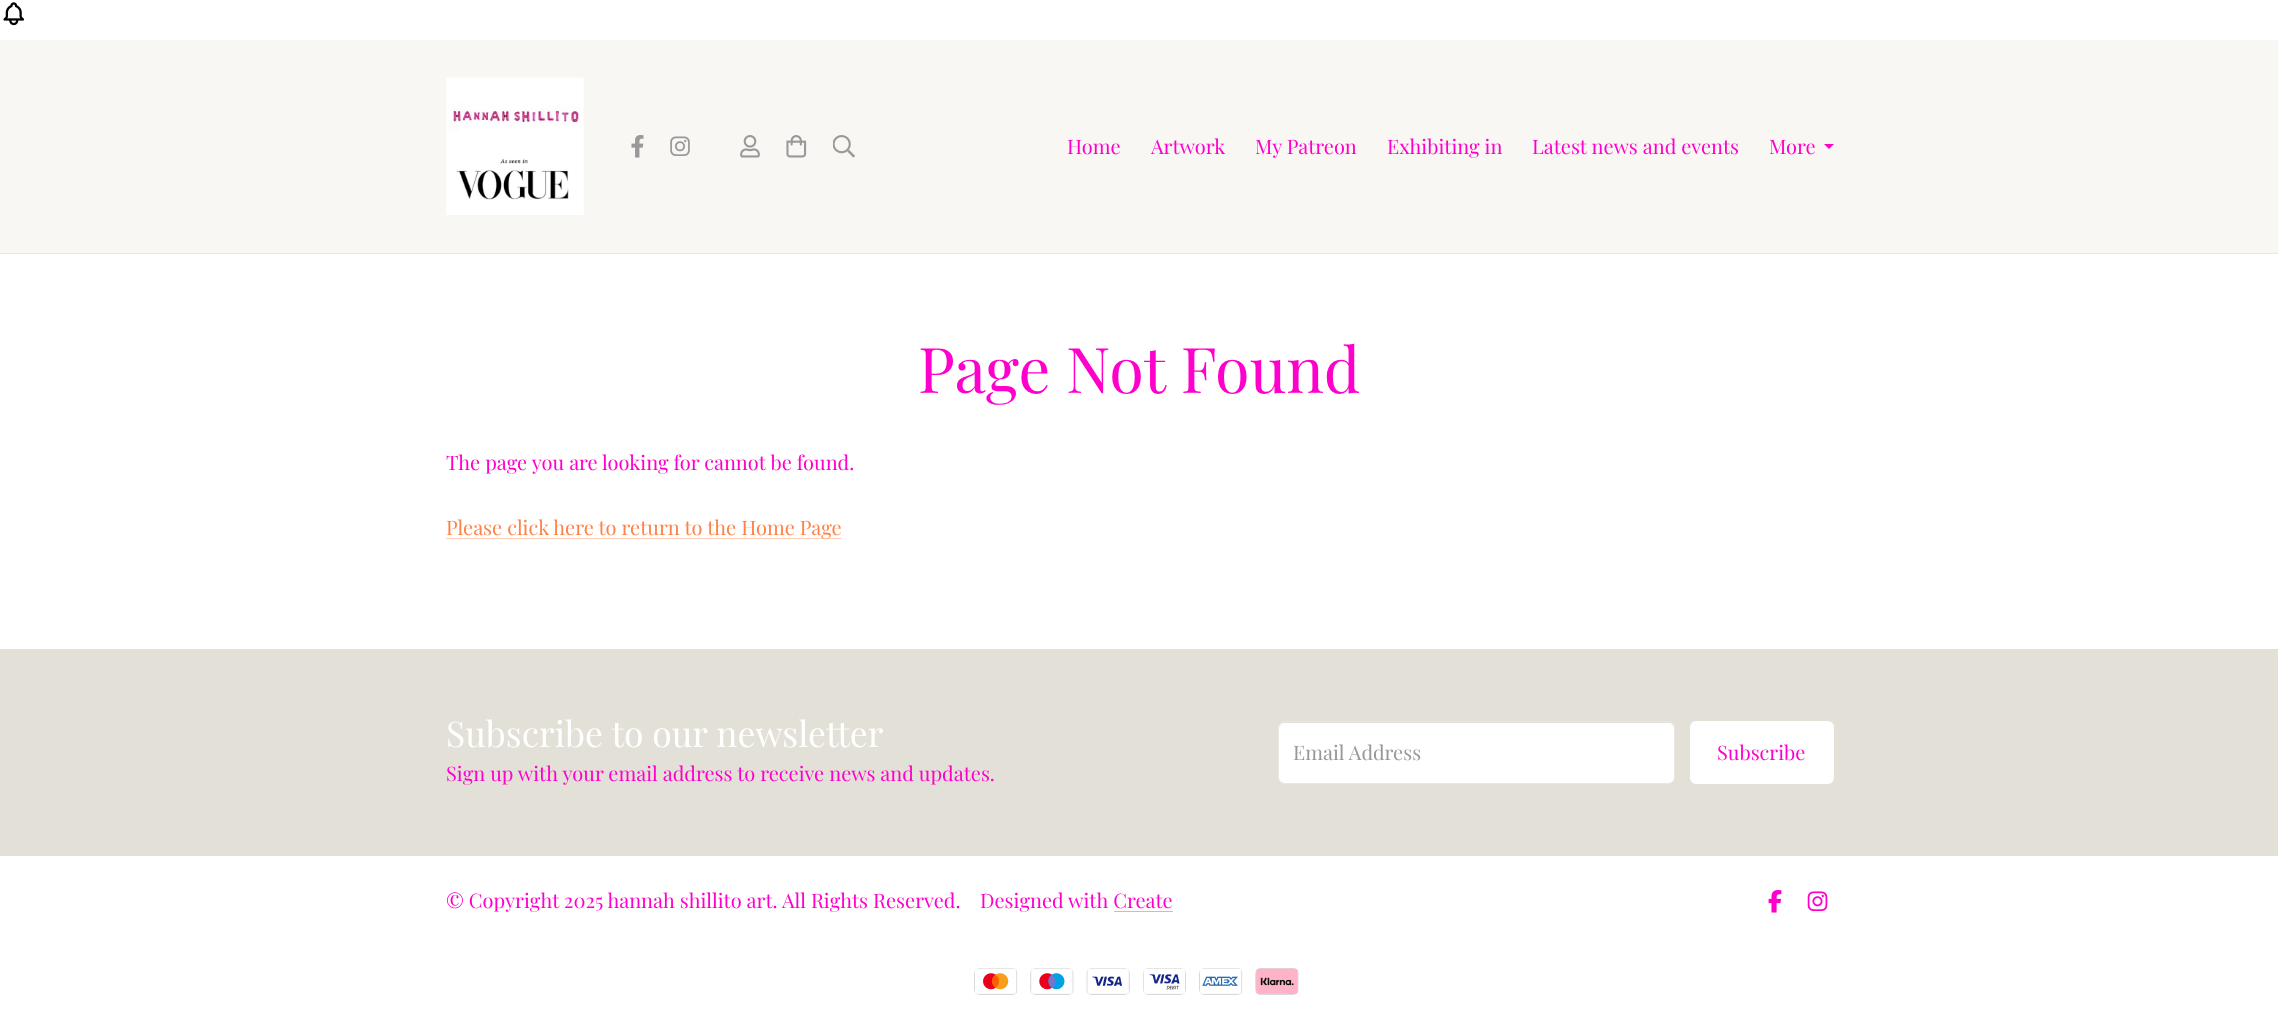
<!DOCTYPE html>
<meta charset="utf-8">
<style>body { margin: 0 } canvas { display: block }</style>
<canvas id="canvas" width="2278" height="1020"></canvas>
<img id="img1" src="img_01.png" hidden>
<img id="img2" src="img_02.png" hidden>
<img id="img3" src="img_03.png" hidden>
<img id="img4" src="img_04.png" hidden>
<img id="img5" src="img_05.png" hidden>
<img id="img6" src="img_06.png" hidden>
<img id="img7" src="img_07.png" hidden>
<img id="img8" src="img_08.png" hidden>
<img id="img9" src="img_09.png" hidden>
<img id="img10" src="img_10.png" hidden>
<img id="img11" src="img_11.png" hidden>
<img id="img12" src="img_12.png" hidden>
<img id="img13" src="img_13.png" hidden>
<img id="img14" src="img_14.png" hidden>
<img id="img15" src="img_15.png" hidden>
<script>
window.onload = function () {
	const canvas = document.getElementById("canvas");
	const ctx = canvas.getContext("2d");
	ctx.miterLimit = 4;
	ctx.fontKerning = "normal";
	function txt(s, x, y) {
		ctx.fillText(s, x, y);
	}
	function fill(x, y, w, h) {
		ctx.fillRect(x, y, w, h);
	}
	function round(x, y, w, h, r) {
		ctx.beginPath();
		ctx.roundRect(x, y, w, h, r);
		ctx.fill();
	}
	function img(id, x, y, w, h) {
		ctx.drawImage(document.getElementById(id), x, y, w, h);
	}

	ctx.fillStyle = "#FFFFFF";
	fill(0, 0, 2278, 1020);
	img("img1", 3, 2, 22, 24);
	ctx.fillStyle = "#F8F7F4";
	fill(0, 40, 2278, 213);
	ctx.fillStyle = "#E9E7E1";
	fill(0, 253, 2278, 1);
	img("img2", 446, 77, 138, 138);
	img("img3", 631, 135, 13, 23);
	img("img4", 670, 136, 20, 20);
	img("img5", 740, 135, 20, 23);
	img("img6", 786, 135, 21, 23);
	img("img7", 833, 135, 22, 23);
	ctx.fillStyle = "#FF00CC";
	ctx.beginPath();
	ctx.moveTo(1824, 144);
	ctx.lineTo(1834, 144);
	ctx.lineTo(1829, 149);
	ctx.closePath();
	ctx.fill();
	ctx.fillStyle = "#FFCDB5";
	fill(446, 538, 395, 1);
	ctx.fillStyle = "#E3E0D7";
	fill(0, 649, 2278, 207);
	ctx.fillStyle = "#FFFFFF";
	round(1279, 723, 395, 60, 5);
	ctx.beginPath();
	ctx.roundRect(1278.5, 721.5, 396, 62, 5.5);
	ctx.strokeStyle = "#E9E7E1";
	ctx.stroke();
	ctx.beginPath();
	ctx.roundRect(1691.5, 722.5, 141, 60, 4.5);
	ctx.fill();
	ctx.strokeStyle = "#FFFFFF";
	ctx.lineWidth = 3;
	ctx.stroke();
	img("img8", 1768, 890, 14, 23);
	img("img9", 1807, 891, 21, 20);
	img("img10", 974, 968, 44, 27);
	img("img11", 1030, 968, 44, 27);
	img("img12", 1086, 968, 44, 27);
	img("img13", 1143, 968, 43, 27);
	img("img14", 1199, 968, 44, 27);
	img("img15", 1255, 968, 44, 27);
	ctx.font = "20px Playfair Display";
	ctx.fillStyle = "#FF00CC";
	txt("Home", 1067, 154);
	txt("Artwork", 1151, 154);
	txt("My Patreon", 1255, 154);
	txt("Exhibiting in", 1387, 154);
	txt("Latest news and events", 1532, 154);
	txt("More", 1769, 154);
	ctx.font = "63px Playfair Display";
	txt("Page Not Found", 918, 393);
	ctx.font = "20px Playfair Display";
	txt("The page you are looking for cannot be found.", 446, 470);
	ctx.fillStyle = "#FE8346";
	txt("Please click here to return to the Home Page", 446, 535);
	ctx.font = "35.5px Playfair Display";
	ctx.fillStyle = "#FFFFFF";
	txt("Subscribe to our newsletter", 446, 747);
	ctx.font = "20px Playfair Display";
	ctx.fillStyle = "#FF00CC";
	txt("Sign up with your email address to receive news and updates.", 446, 781);
	ctx.fillStyle = "#989898";
	txt("Email Address", 1293, 760);
	ctx.fillStyle = "#FF00CC";
	txt("Subscribe", 1717, 760);
	txt("© Copyright 2025 hannah shillito art. All Rights Reserved.", 446, 908);
	txt("Designed with Create", 980, 908);
	ctx.fillStyle = "#FF99EB";
	fill(1114, 911, 59, 1);
};
</script>
